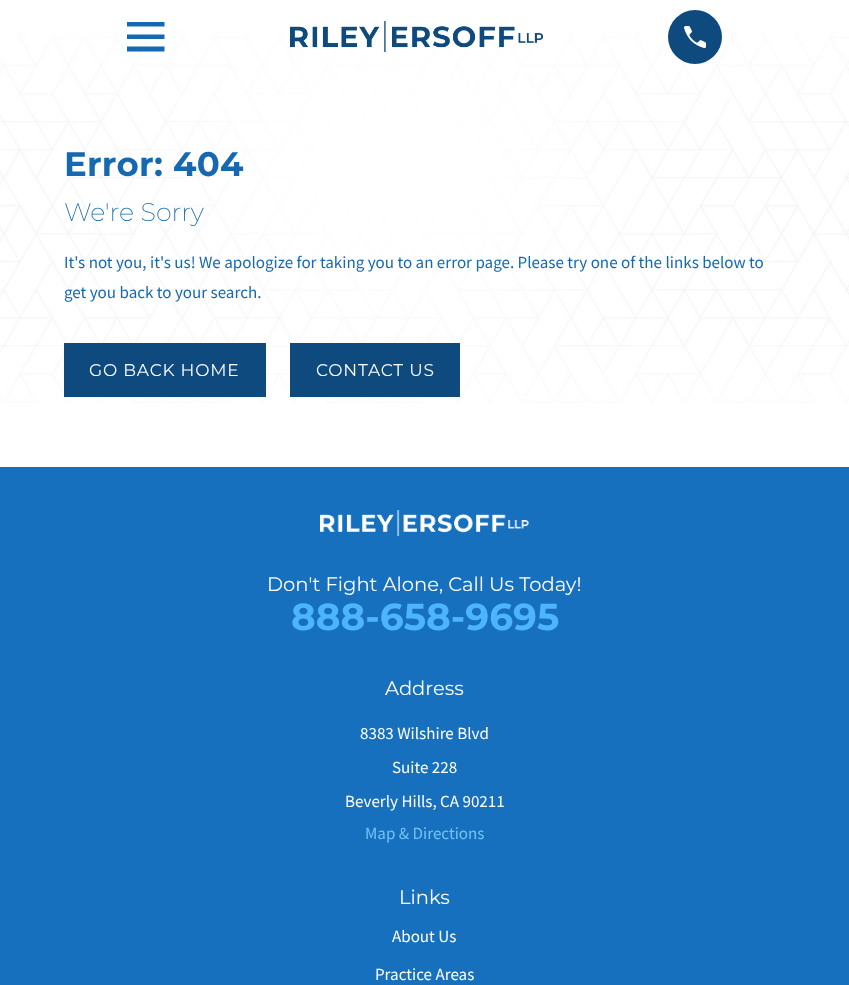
<!DOCTYPE html>
<meta charset="utf-8">
<style>body { margin: 0 } canvas { display: block }</style>
<canvas id="canvas" width="849" height="985"></canvas>
<img id="img1" src="img_01.png" hidden>
<img id="img2" src="img_02.png" hidden>
<img id="img3" src="img_03.png" hidden>
<img id="img4" src="img_04.png" hidden>
<script>
window.onload = function () {
	const canvas = document.getElementById("canvas");
	const ctx = canvas.getContext("2d");
	ctx.miterLimit = 4;
	ctx.fontKerning = "normal";
	function txt(s, x, y) {
		ctx.fillText(s, x, y);
	}
	function fill(x, y, w, h) {
		ctx.fillRect(x, y, w, h);
	}
	function img(id, x, y, w, h) {
		ctx.drawImage(document.getElementById(id), x, y, w, h);
	}

	ctx.fillStyle = "#FFFFFF";
	fill(0, 0, 849, 985);
	img("img1", 0, 31, 849, 372);
	ctx.fillStyle = "#1669B1";
	ctx.beginPath();
	ctx.moveTo(127, 22);
	ctx.lineTo(127, 26.5);
	ctx.lineTo(164.5, 26.5);
	ctx.lineTo(164.5, 22);
	ctx.closePath();
	ctx.moveTo(127, 34.5);
	ctx.lineTo(127, 39);
	ctx.lineTo(164.5, 39);
	ctx.lineTo(164.5, 34.5);
	ctx.closePath();
	ctx.moveTo(127, 46.5);
	ctx.lineTo(127, 51.5);
	ctx.lineTo(164.5, 51.5);
	ctx.lineTo(164.5, 46.5);
	ctx.closePath();
	ctx.fill();
	img("img2", 290, 21, 253, 31);
	ctx.fillStyle = "#0F4A7E";
	ctx.beginPath();
	ctx.arc(695, 37, 27, 0, Math.PI * 2);
	ctx.fill();
	img("img3", 684, 26, 22, 22);
	fill(64, 343, 202, 54);
	fill(290, 343, 170, 54);
	ctx.fillStyle = "#1770BD";
	fill(0, 467, 849, 518);
	img("img4", 320, 510, 209, 26);
	ctx.letterSpacing = "0.25px";
	ctx.font = "bold 34px Montserrat";
	ctx.fillStyle = "#1669B1";
	txt("Error: 404", 64, 176);
	ctx.letterSpacing = "0px";
	ctx.font = "200 25.5px Montserrat";
	txt("We're Sorry", 64, 221);
	ctx.font = "17px Source Sans Pro";
	txt("It's not you, it's us! We apologize for taking you to an error page. Please try one of the links below to", 64, 268);
	txt("get you back to your search.", 64, 298);
	ctx.letterSpacing = "0.8px";
	ctx.font = "17px Montserrat";
	ctx.fillStyle = "#FFFFFF";
	txt("GO BACK HOME", 89, 376);
	txt("CONTACT US", 316, 376);
	ctx.letterSpacing = "0px";
	ctx.font = "19.5px Montserrat";
	txt("Don't Fight Alone, Call Us Today!", 267, 591);
	ctx.font = "bold 37.5px Montserrat";
	ctx.fillStyle = "#4CB5FD";
	txt("888-658-9695", 291, 630);
	ctx.font = "19.5px Montserrat";
	ctx.fillStyle = "#FFFFFF";
	txt("Address", 385, 695);
	ctx.font = "17px Source Sans Pro";
	txt("8383 Wilshire Blvd", 360, 739);
	txt("Suite 228", 392, 773);
	txt("Beverly Hills, CA 90211", 345, 807);
	ctx.fillStyle = "#75C3F7";
	txt("Map & Directions", 365, 839);
	ctx.font = "19.5px Montserrat";
	ctx.fillStyle = "#FFFFFF";
	txt("Links", 399, 904);
	ctx.font = "17px Source Sans Pro";
	txt("About Us", 392, 942);
	txt("Practice Areas", 375, 980);
};
</script>
